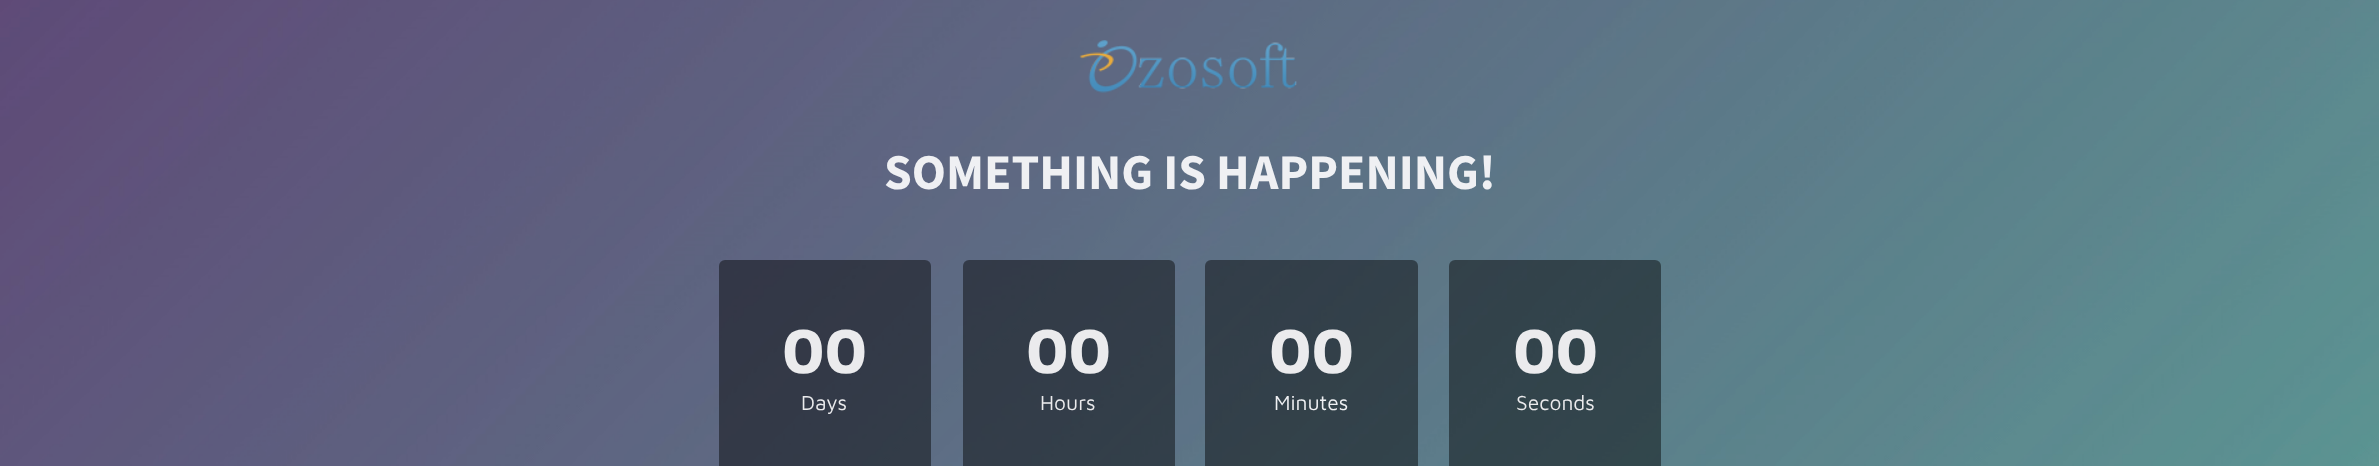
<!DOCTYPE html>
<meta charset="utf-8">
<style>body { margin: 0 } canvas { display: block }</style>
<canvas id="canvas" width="2379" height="466"></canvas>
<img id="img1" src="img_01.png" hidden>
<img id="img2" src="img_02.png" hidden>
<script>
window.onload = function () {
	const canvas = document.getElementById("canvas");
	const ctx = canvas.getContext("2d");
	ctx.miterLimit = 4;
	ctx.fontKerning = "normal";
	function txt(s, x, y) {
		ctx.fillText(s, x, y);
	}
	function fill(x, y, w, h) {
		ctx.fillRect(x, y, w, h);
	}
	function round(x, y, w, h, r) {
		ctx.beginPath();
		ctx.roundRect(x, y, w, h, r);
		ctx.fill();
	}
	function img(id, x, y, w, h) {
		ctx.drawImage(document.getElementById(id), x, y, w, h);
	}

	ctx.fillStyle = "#FFFFFF";
	fill(0, 0, 2379, 466);
	img("img1", 0, 0, 2379, 466);
	img("img2", 1079, 40, 218, 53);
	ctx.fillStyle = "rgba(0, 0, 0, 0.45)";
	round(719, 260, 212, 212, 6);
	round(963, 260, 212, 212, 6);
	round(1205, 260, 213, 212, 6);
	round(1449, 260, 212, 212, 6);
	ctx.font = "bold 50px Source Sans Pro";
	ctx.fillStyle = "#EFF0F3";
	txt("SOMETHING IS HAPPENING!", 884, 189);
	ctx.font = "bold 64px Maven Pro";
	ctx.fillStyle = "#EBEBED";
	txt("00", 782, 373);
	ctx.font = "21px Maven Pro";
	txt("Days", 801, 410);
	ctx.font = "bold 64px Maven Pro";
	txt("00", 1026, 373);
	ctx.font = "21px Maven Pro";
	txt("Hours", 1040, 410);
	ctx.font = "bold 64px Maven Pro";
	txt("00", 1269, 373);
	ctx.font = "21px Maven Pro";
	ctx.fillStyle = "#EFF0F3";
	txt("Minutes", 1274, 410);
	ctx.font = "bold 64px Maven Pro";
	ctx.fillStyle = "#EBEBED";
	txt("00", 1513, 373);
	ctx.font = "21px Maven Pro";
	txt("Seconds", 1516, 410);
};
</script>
